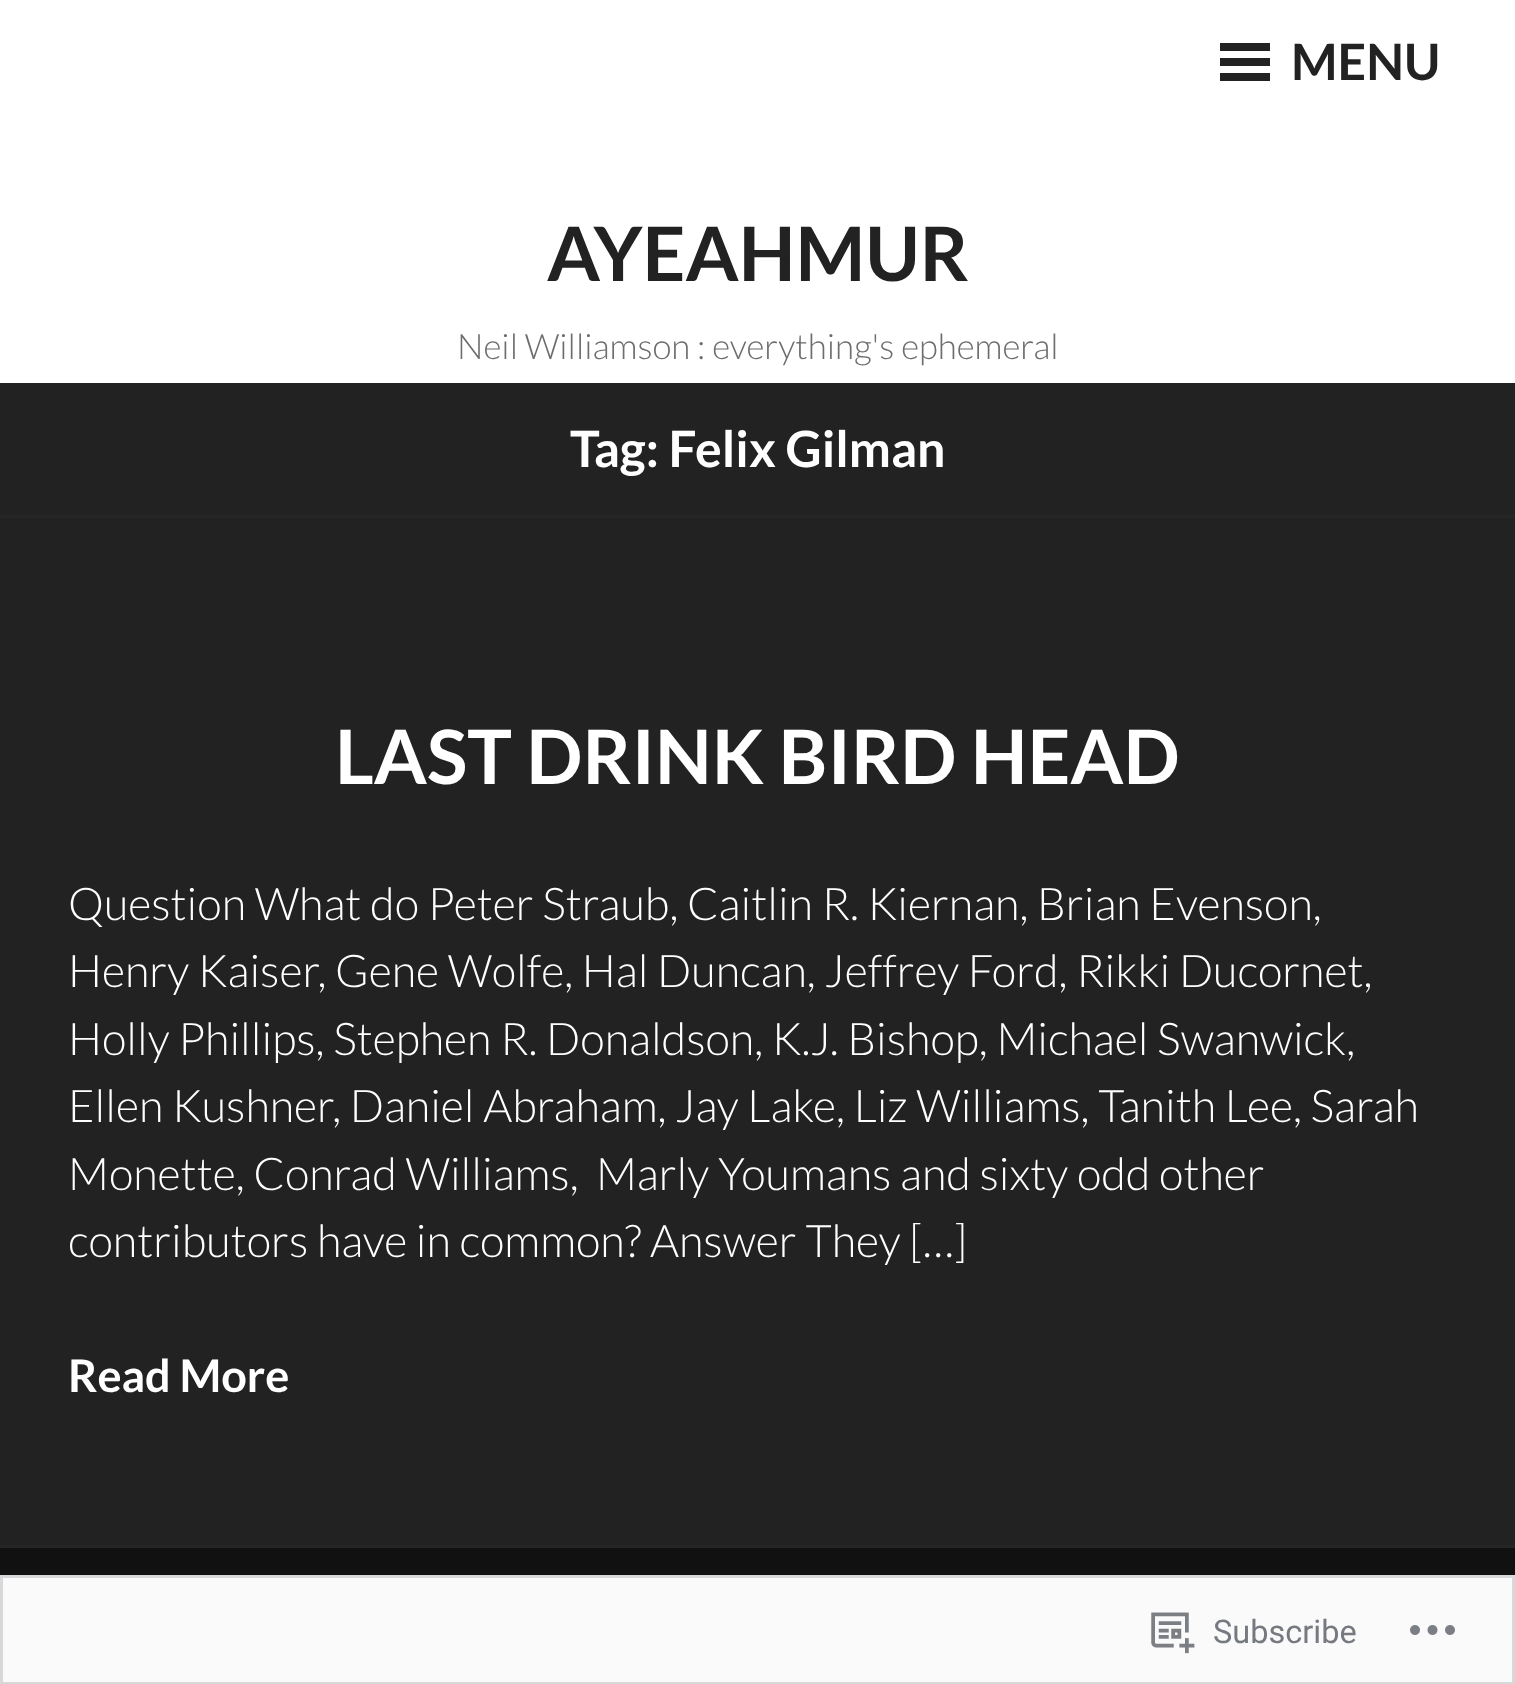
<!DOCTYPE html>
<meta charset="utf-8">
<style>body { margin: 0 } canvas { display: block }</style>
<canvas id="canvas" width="1515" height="1684"></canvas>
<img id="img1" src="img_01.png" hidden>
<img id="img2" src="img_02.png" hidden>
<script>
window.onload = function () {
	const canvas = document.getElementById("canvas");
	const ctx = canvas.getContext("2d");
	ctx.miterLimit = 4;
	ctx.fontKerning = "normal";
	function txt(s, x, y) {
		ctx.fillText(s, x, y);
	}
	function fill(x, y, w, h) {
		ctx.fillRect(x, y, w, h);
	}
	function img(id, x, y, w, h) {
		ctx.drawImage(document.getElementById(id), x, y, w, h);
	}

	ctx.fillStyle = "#FFFFFF";
	fill(0, 0, 1515, 1684);
	ctx.fillStyle = "#222222";
	fill(1220, 58, 50, 8);
	fill(1220, 43, 50, 8);
	fill(1220, 73, 50, 8);
	fill(0, 383, 1515, 132);
	ctx.fillStyle = "#252525";
	fill(0, 515, 1515, 3);
	ctx.fillStyle = "#222222";
	fill(0, 518, 1515, 1027);
	ctx.fillStyle = "#252525";
	fill(0, 1545, 1515, 3);
	ctx.fillStyle = "#111111";
	fill(0, 1548, 1515, 27);
	ctx.fillStyle = "#FAFAFA";
	ctx.beginPath();
	ctx.rect(1.5, 1576.5, 1512, 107);
	ctx.fill();
	ctx.strokeStyle = "#D8D8DA";
	ctx.lineWidth = 3;
	ctx.stroke();
	img("img1", 1151, 1612, 44, 42);
	img("img2", 1410, 1625, 45, 10);
	ctx.font = "bold 50px Lato";
	ctx.fillStyle = "#222222";
	txt("MENU", 1291, 80);
	ctx.font = "bold 75px Lato";
	txt("AYEAHMUR", 547, 281);
	ctx.font = "300 35px Lato";
	ctx.fillStyle = "#6D6D6D";
	txt("Neil Williamson : everything's ephemeral", 457, 359);
	ctx.font = "bold 50px Lato";
	ctx.fillStyle = "#FFFFFF";
	txt("Tag: Felix Gilman", 570, 467);
	ctx.font = "bold 75px Lato";
	txt("LAST DRINK BIRD HEAD", 335, 784);
	ctx.font = "300 45px Lato";
	txt("Question What do Peter Straub, Caitlin R. Kiernan, Brian Evenson,", 68, 920);
	txt("Henry Kaiser, Gene Wolfe, Hal Duncan, Jeffrey Ford, Rikki Ducornet,", 68, 987);
	txt("Holly Phillips, Stephen R. Donaldson, K.J. Bishop, Michael Swanwick,", 68, 1055);
	txt("Ellen Kushner, Daniel Abraham, Jay Lake, Liz Williams, Tanith Lee, Sarah", 68, 1122);
	txt("Monette, Conrad Williams,  Marly Youmans and sixty odd other", 68, 1190);
	txt("contributors have in common? Answer They […]", 68, 1257);
	ctx.font = "bold 45px Lato";
	txt("Read More", 68, 1392);
	ctx.font = "32.5px Roboto";
	ctx.fillStyle = "#767A80";
	txt("Subscribe", 1213, 1643);
};
</script>
